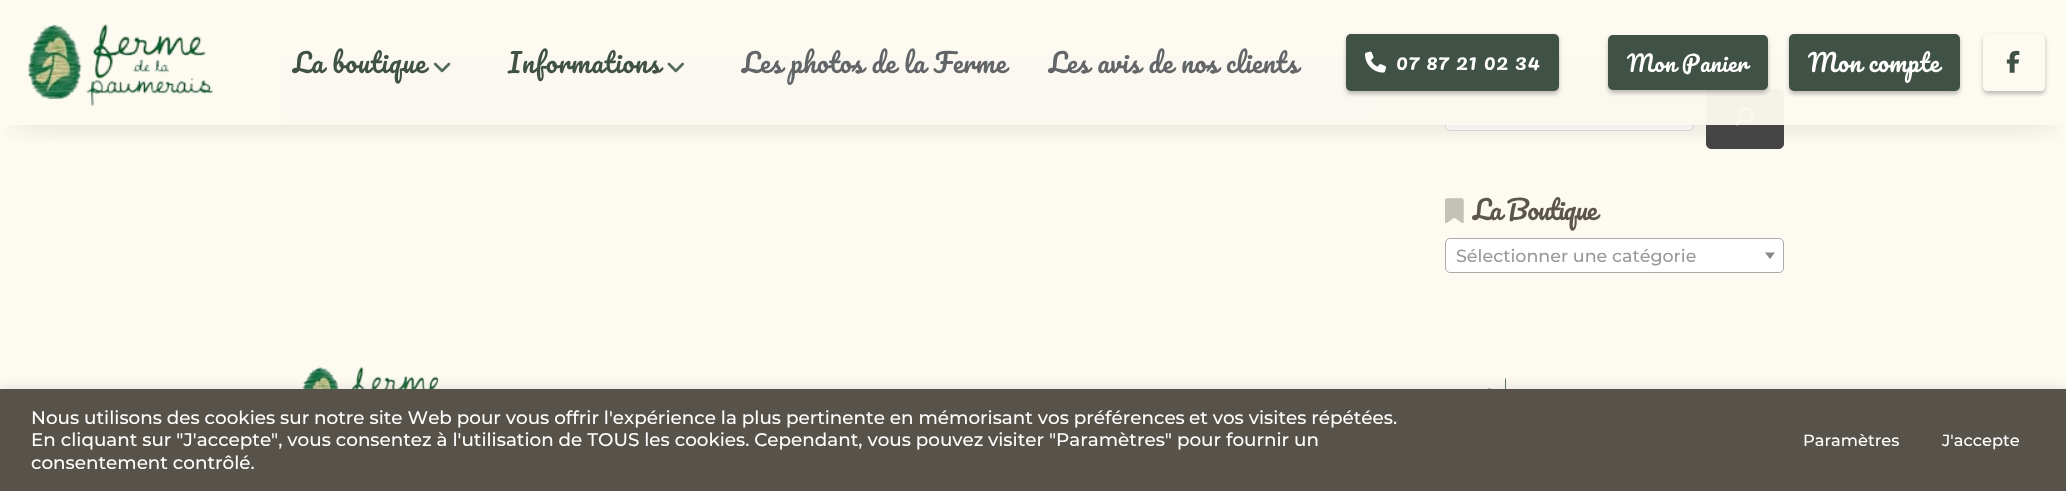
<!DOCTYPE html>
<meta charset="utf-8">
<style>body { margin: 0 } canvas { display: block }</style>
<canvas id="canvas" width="2066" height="491"></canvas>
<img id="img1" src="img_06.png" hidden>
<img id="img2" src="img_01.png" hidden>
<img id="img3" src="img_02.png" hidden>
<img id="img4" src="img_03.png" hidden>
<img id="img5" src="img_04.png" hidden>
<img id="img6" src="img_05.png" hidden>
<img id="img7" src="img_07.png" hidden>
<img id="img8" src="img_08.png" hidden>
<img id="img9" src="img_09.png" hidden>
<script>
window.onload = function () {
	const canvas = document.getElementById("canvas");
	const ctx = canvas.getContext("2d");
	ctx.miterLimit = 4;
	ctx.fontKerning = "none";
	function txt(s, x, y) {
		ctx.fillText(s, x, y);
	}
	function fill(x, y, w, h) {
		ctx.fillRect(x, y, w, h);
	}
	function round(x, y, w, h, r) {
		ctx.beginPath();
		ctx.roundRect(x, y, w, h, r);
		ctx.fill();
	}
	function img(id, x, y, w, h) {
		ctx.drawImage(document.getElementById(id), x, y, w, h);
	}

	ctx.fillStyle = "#FCFAF1";
	fill(0, 0, 2066, 491);
	ctx.fillStyle = "rgba(0, 0, 0, 0.07)";
	ctx.filter = "blur(2px)";
	ctx.beginPath();
	ctx.roundRect(284, 59, 1087, 60, 5);
	ctx.fill();
	ctx.filter = "none";
	ctx.fillStyle = "#D9EDF7";
	round(284, 56, 1087, 60, 5);
	ctx.fillStyle = "#F7FBFD";
	ctx.beginPath();
	ctx.moveTo(289, 59);
	ctx.lineTo(1366, 59);
	ctx.bezierCurveTo(1368, 59, 1370, 60, 1370, 62);
	ctx.bezierCurveTo(1370, 60, 1368, 58, 1366, 58);
	ctx.lineTo(289, 58);
	ctx.bezierCurveTo(287, 58, 285, 60, 285, 62);
	ctx.bezierCurveTo(285, 60, 287, 59, 289, 59);
	ctx.closePath();
	ctx.fill();
	ctx.beginPath();
	ctx.roundRect(284.5, 56.5, 1086, 59, 4.5);
	ctx.strokeStyle = "#B3D1EF";
	ctx.stroke();
	ctx.fillStyle = "#FFFFFF";
	round(1445, 89, 249, 42, 5);
	ctx.fillStyle = "#ECECEC";
	ctx.beginPath();
	ctx.moveTo(1450, 91);
	ctx.lineTo(1689, 91);
	ctx.bezierCurveTo(1691, 91, 1692, 93, 1692, 95);
	ctx.lineTo(1692, 129);
	ctx.bezierCurveTo(1693, 128, 1693, 127, 1693, 126);
	ctx.lineTo(1693, 94);
	ctx.bezierCurveTo(1693, 92, 1691, 90, 1689, 90);
	ctx.lineTo(1450, 90);
	ctx.bezierCurveTo(1448, 90, 1446, 92, 1446, 94);
	ctx.lineTo(1446, 95);
	ctx.bezierCurveTo(1446, 93, 1448, 91, 1450, 91);
	ctx.closePath();
	ctx.fill();
	ctx.beginPath();
	ctx.roundRect(1445.5, 89.5, 248, 41, 4.5);
	ctx.strokeStyle = "#DDDDDD";
	ctx.stroke();
	ctx.fillStyle = "#444444";
	ctx.beginPath();
	ctx.roundRect(1706.5, 89.5, 77, 59, 4.5);
	ctx.fill();
	ctx.strokeStyle = "#444444";
	ctx.stroke();
	img("img1", 1735, 107, 19, 19);
	ctx.save();
	ctx.beginPath();
	ctx.rect(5, 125, 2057, 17);
	ctx.clip();
	ctx.fillStyle = "rgba(92, 85, 75, 0.3)";
	ctx.filter = "blur(17.5px)";
	ctx.beginPath();
	ctx.rect(18, 26, 2031, 90);
	ctx.fill();
	ctx.filter = "none";
	ctx.restore();
	ctx.fillStyle = "rgba(251, 248, 240, 0.97)";
	fill(282, 56, 1502, 69);
	img("img2", 27, 23, 187, 84);
	img("img3", 433, 62, 18, 11);
	img("img4", 667, 62, 17, 11);
	ctx.fillStyle = "rgba(0, 0, 0, 0.25)";
	ctx.filter = "blur(2px)";
	ctx.beginPath();
	ctx.roundRect(1346, 36, 213, 58, 5);
	ctx.fill();
	ctx.filter = "none";
	ctx.fillStyle = "#405246";
	round(1346, 34, 213, 57, 5);
	img("img5", 1365, 51, 21, 22);
	ctx.fillStyle = "rgba(0, 0, 0, 0.25)";
	ctx.filter = "blur(2px)";
	ctx.beginPath();
	ctx.roundRect(1608, 38, 160, 55, 5);
	ctx.fill();
	ctx.filter = "none";
	ctx.fillStyle = "#405246";
	round(1608, 35, 160, 55, 5);
	ctx.fillStyle = "rgba(0, 0, 0, 0.25)";
	ctx.filter = "blur(2px)";
	ctx.beginPath();
	ctx.roundRect(1789, 36, 171, 58, 5);
	ctx.fill();
	ctx.filter = "none";
	ctx.fillStyle = "#405246";
	round(1789, 34, 171, 57, 5);
	ctx.save();
	ctx.beginPath();
	ctx.moveTo(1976, 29);
	ctx.lineTo(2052, 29);
	ctx.lineTo(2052, 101);
	ctx.lineTo(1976, 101);
	ctx.closePath();
	ctx.moveTo(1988, 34);
	ctx.lineTo(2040, 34);
	ctx.bezierCurveTo(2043, 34, 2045, 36, 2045, 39);
	ctx.lineTo(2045, 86);
	ctx.bezierCurveTo(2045, 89, 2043, 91, 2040, 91);
	ctx.lineTo(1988, 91);
	ctx.bezierCurveTo(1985, 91, 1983, 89, 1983, 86);
	ctx.lineTo(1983, 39);
	ctx.bezierCurveTo(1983, 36, 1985, 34, 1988, 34);
	ctx.closePath();
	ctx.clip("evenodd");
	ctx.fillStyle = "rgba(0, 0, 0, 0.25)";
	ctx.filter = "blur(2px)";
	ctx.beginPath();
	ctx.roundRect(1983, 36, 62, 58, 5);
	ctx.fill();
	ctx.filter = "none";
	ctx.restore();
	img("img6", 2006, 50, 14, 23);
	img("img7", 1445, 198, 19, 25);
	ctx.fillStyle = "#FFFFFF";
	ctx.beginPath();
	ctx.roundRect(1445.5, 238.5, 338, 34, 4.5);
	ctx.fill();
	ctx.strokeStyle = "#AAAAAA";
	ctx.stroke();
	ctx.fillStyle = "#888888";
	ctx.beginPath();
	ctx.moveTo(1765, 252.5);
	ctx.lineTo(1775, 252.5);
	ctx.lineTo(1770, 259);
	ctx.closePath();
	ctx.fill();
	img("img8", 302, 366, 141, 23);
	ctx.fillStyle = "#546A5C";
	ctx.beginPath();
	ctx.moveTo(1506, 377.5);
	ctx.lineTo(1506, 415);
	ctx.lineTo(1505, 415);
	ctx.lineTo(1505, 380);
	ctx.closePath();
	ctx.fill();
	img("img9", 1488, 388, 4, 1);
	ctx.fillStyle = "rgba(172, 171, 171, 0.3)";
	ctx.filter = "blur(6px)";
	ctx.beginPath();
	ctx.rect(0, 388, 2066, 102);
	ctx.fill();
	ctx.filter = "none";
	ctx.fillStyle = "#58534A";
	fill(0, 389, 2066, 102);
	ctx.letterSpacing = "0.7px";
	ctx.font = "26.25px Pacifico";
	ctx.fillStyle = "#405246";
	txt("La boutique", 293, 73);
	txt("Informations", 508, 73);
	ctx.letterSpacing = "0.4px";
	ctx.wordSpacing = "0.5px";
	ctx.fillStyle = "#636669";
	txt("Les photos de la Ferme", 742, 73);
	txt("Les avis de nos clients", 1049, 73);
	ctx.letterSpacing = "0.5px";
	ctx.wordSpacing = "0px";
	ctx.font = "22px Pacifico";
	ctx.fillStyle = "#FFFFFF";
	txt("07 87 21 02 34", 1396, 70);
	ctx.wordSpacing = "-1px";
	txt("Mon Panier", 1627, 72);
	ctx.wordSpacing = "0px";
	ctx.font = "24px Pacifico";
	txt("Mon compte", 1808, 72);
	ctx.letterSpacing = "-1.1px";
	ctx.font = "26.25px Pacifico";
	ctx.fillStyle = "#5C554B";
	txt("La Boutique", 1473, 220);
	ctx.letterSpacing = "0px";
	ctx.font = "500 17.5px Montserrat";
	ctx.fillStyle = "#999999";
	txt("Sélectionner une catégorie", 1456, 262);
	ctx.font = "500 18.33px Montserrat";
	ctx.fillStyle = "#FFFFFF";
	txt("Nous utilisons des cookies sur notre site Web pour vous offrir l'expérience la plus pertinente en mémorisant vos préférences", 31, 424);
	txt("et vos visites répétées.", 1189, 424);
	txt("En cliquant sur \"J'accepte\", vous consentez à l'utilisation de TOUS les cookies. Cependant, vous pouvez", 31, 446);
	txt("visiter \"Paramètres\" pour fournir un", 988, 446);
	txt("consentement contrôlé.", 31, 469);
	ctx.font = "500 16.25px Montserrat";
	txt("Paramètres", 1803, 446);
	txt("J'accepte", 1942, 446);
};
</script>
